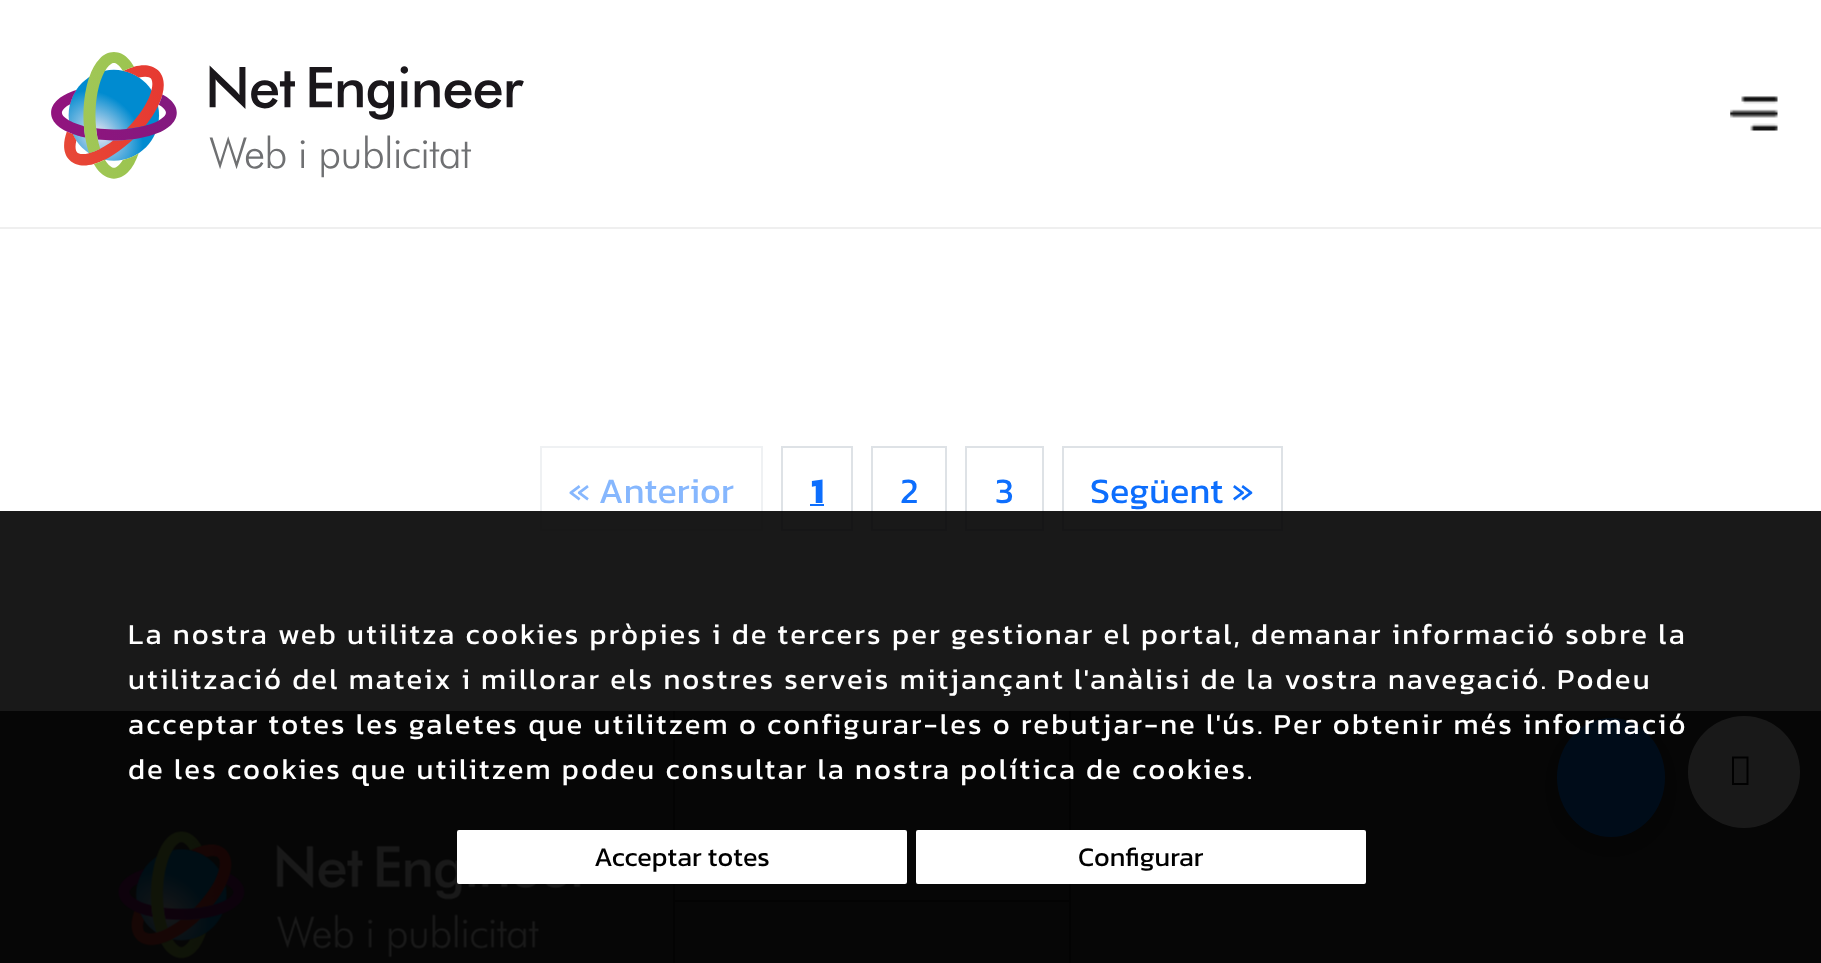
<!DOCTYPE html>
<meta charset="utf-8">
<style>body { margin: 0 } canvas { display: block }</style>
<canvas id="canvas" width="1821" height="963"></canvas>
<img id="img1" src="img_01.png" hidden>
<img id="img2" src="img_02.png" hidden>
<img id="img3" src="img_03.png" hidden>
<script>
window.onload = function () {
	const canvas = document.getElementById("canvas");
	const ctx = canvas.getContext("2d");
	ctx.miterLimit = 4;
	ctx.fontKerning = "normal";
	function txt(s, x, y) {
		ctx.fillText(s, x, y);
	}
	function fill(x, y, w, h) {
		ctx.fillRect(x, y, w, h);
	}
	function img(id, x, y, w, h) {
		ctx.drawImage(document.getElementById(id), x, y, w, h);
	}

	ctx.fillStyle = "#FFFFFF";
	fill(0, 0, 1821, 963);
	ctx.fillStyle = "#EFEFEF";
	fill(0, 227, 1821, 2);
	img("img1", 51, 52, 473, 127);
	img("img2", 1730, 96, 48, 35);
	ctx.strokeStyle = "#EFF1F3";
	ctx.lineWidth = 2;
	ctx.strokeRect(541, 447, 221, 83);
	ctx.strokeStyle = "#DEE2E6";
	ctx.strokeRect(782, 447, 70, 83);
	ctx.fillStyle = "#0D6EFD";
	fill(810, 504, 14, 2);
	ctx.strokeRect(872, 447, 74, 83);
	ctx.strokeRect(966, 447, 77, 83);
	ctx.strokeRect(1063, 447, 219, 83);
	ctx.fillStyle = "#3D3D3D";
	fill(0, 711, 1821, 252);
	img("img3", 118, 831, 463, 128);
	ctx.fillStyle = "#262626";
	fill(1069, 711, 2, 252);
	fill(673, 711, 2, 252);
	fill(675, 900, 394, 2);
	ctx.fillStyle = "#FFFFFF";
	ctx.beginPath();
	ctx.arc(1744, 772, 56, 0, Math.PI * 2);
	ctx.fill();
	ctx.fillStyle = "rgba(0, 0, 0, 0.2)";
	ctx.filter = "blur(9px)";
	ctx.beginPath();
	ctx.roundRect(1557, 727, 108, 119, 54);
	ctx.fill();
	ctx.filter = "none";
	ctx.fillStyle = "#007BFF";
	ctx.beginPath();
	ctx.ellipse(1611, 777.5, 54, 59.5, 0, 0, Math.PI * 2);
	ctx.fill();
	ctx.fillStyle = "#121212";
	ctx.beginPath();
	ctx.moveTo(1732, 785);
	ctx.lineTo(1732, 756.5);
	ctx.lineTo(1748.5, 756.5);
	ctx.lineTo(1748.5, 785);
	ctx.closePath();
	ctx.moveTo(1734, 783);
	ctx.lineTo(1746.5, 783);
	ctx.lineTo(1746.5, 758.5);
	ctx.lineTo(1734, 758.5);
	ctx.closePath();
	ctx.fill();
	ctx.fillStyle = "rgba(0, 0, 0, 0.9)";
	fill(0, 511, 1821, 452);
	ctx.fillStyle = "#FFFFFF";
	ctx.beginPath();
	ctx.roundRect(458, 831, 448, 52, 1);
	ctx.fill();
	ctx.strokeStyle = "#FFFFFF";
	ctx.stroke();
	ctx.beginPath();
	ctx.roundRect(917, 831, 448, 52, 1);
	ctx.fill();
	ctx.stroke();
	ctx.font = "36px Kanit";
	ctx.fillStyle = "#86B7FE";
	txt("« Anterior", 568, 503);
	ctx.font = "bold 36px Kanit";
	ctx.fillStyle = "#0D6EFD";
	txt("1", 811, 503);
	ctx.font = "36px Kanit";
	txt("2", 900, 503);
	txt("3", 995, 503);
	txt("Següent »", 1090, 503);
	ctx.letterSpacing = "2.25px";
	ctx.font = "29.25px Kanit";
	ctx.fillStyle = "#FFFFFF";
	txt("La nostra web utilitza cookies pròpies i de tercers per gestionar el portal, demanar informació sobre la", 128, 644);
	txt("utilització del mateix i millorar els nostres serveis mitjançant l'anàlisi de la vostra navegació. Podeu", 128, 689);
	txt("acceptar totes les galetes que utilitzem o configurar-les o rebutjar-ne l'ús. Per obtenir més informació", 128, 734);
	txt("de les cookies que utilitzem podeu consultar la nostra política de cookies", 128, 779);
	txt(".", 1247, 779);
	ctx.letterSpacing = "0px";
	ctx.font = "27px Kanit";
	ctx.fillStyle = "#000000";
	txt("Acceptar totes", 594, 866);
	txt("Configurar", 1078, 866);
};
</script>
